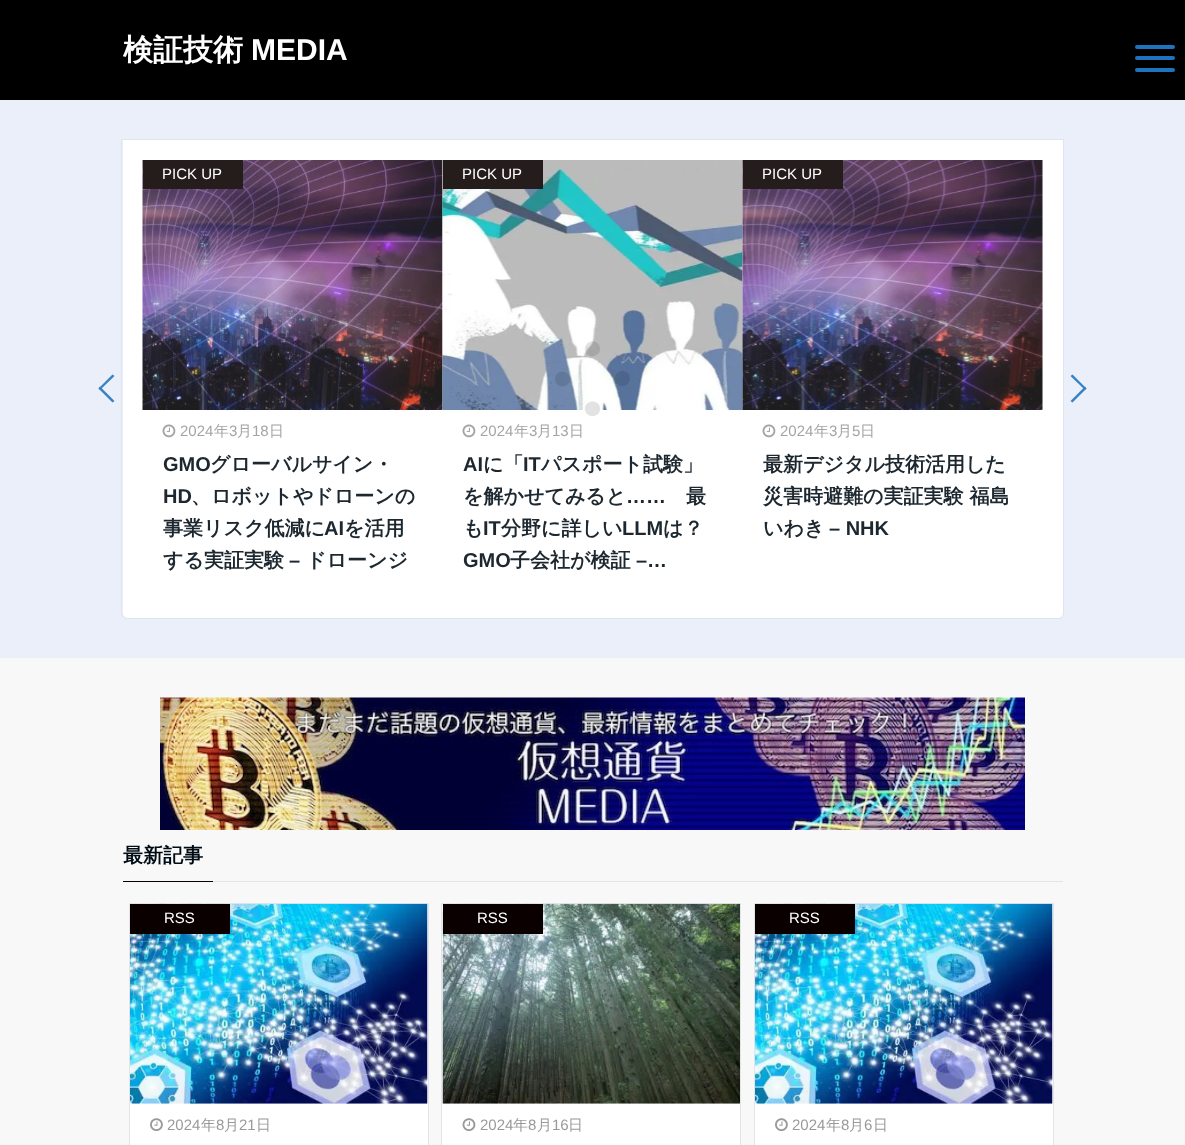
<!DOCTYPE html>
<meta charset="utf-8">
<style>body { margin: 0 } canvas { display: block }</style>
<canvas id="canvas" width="1185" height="1145"></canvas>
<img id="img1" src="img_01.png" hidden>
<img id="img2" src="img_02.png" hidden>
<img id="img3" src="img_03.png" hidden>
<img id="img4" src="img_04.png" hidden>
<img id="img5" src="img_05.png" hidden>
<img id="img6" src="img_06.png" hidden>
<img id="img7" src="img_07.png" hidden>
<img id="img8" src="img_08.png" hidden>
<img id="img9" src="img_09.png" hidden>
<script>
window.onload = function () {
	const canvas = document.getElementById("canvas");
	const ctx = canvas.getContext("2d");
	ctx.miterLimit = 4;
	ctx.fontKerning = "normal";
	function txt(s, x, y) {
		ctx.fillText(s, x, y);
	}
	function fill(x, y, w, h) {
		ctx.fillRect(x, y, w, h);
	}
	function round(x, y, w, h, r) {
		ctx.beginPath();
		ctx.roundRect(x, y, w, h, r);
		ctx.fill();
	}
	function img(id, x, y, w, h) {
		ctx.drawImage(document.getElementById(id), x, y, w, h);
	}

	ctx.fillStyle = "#F8F8F8";
	fill(0, 0, 1185, 1145);
	ctx.fillStyle = "#000000";
	fill(0, 0, 1185, 100);
	ctx.fillStyle = "#1E73BE";
	round(1135, 45, 40, 4, 2);
	round(1135, 56, 40, 4, 2);
	round(1135, 68, 40, 4, 2);
	ctx.fillStyle = "#EBEFF9";
	fill(0, 100, 1185, 558);
	ctx.beginPath();
	ctx.roundRect(121.5, 139.5, 942, 479, [0, 0, 5.5, 5.5]);
	ctx.strokeStyle = "#E0E4EE";
	ctx.stroke();
	ctx.fillStyle = "#FFFFFF";
	ctx.beginPath();
	ctx.roundRect(123, 140, 940, 478, [0, 0, 5, 5]);
	ctx.fill();
	ctx.fillStyle = "#3782C5";
	ctx.beginPath();
	ctx.moveTo(112.5, 402.5);
	ctx.lineTo(98.5, 388.5);
	ctx.lineTo(100, 386.5);
	ctx.lineTo(114.5, 401);
	ctx.closePath();
	ctx.fill();
	ctx.beginPath();
	ctx.moveTo(100, 390);
	ctx.lineTo(98.5, 388.5);
	ctx.lineTo(112.5, 374.5);
	ctx.lineTo(114.5, 376);
	ctx.closePath();
	ctx.fill();
	img("img1", 142, 160, 301, 250);
	ctx.fillStyle = "#251C1C";
	fill(143, 160, 100, 29);
	img("img2", 162, 424, 14, 14);
	img("img3", 442, 160, 301, 250);
	fill(443, 160, 100, 29);
	img("img2", 462, 424, 14, 14);
	img("img4", 742, 160, 301, 250);
	fill(743, 160, 100, 29);
	img("img2", 762, 424, 14, 14);
	ctx.fillStyle = "#3782C5";
	ctx.beginPath();
	ctx.moveTo(1072.5, 374.5);
	ctx.lineTo(1086.5, 388.5);
	ctx.lineTo(1085, 390);
	ctx.lineTo(1070.5, 376);
	ctx.closePath();
	ctx.fill();
	ctx.beginPath();
	ctx.moveTo(1085, 386.5);
	ctx.lineTo(1086.5, 388.5);
	ctx.lineTo(1072.5, 402.5);
	ctx.lineTo(1070.5, 401);
	ctx.closePath();
	ctx.fill();
	ctx.fillStyle = "rgba(0, 0, 0, 0.11)";
	ctx.beginPath();
	ctx.arc(562.5, 379, 7.5, 0, Math.PI * 2);
	ctx.fill();
	ctx.beginPath();
	ctx.moveTo(600, 349);
	ctx.bezierCurveTo(600, 358.5, 585, 358.5, 585, 349);
	ctx.bezierCurveTo(585, 339, 600, 339, 600, 349);
	ctx.closePath();
	ctx.moveTo(622.5, 386);
	ctx.bezierCurveTo(612.5, 386, 612.5, 371, 622.5, 371);
	ctx.bezierCurveTo(632.5, 371, 632.5, 386, 622.5, 386);
	ctx.closePath();
	ctx.fill();
	ctx.beginPath();
	ctx.moveTo(585, 409);
	ctx.bezierCurveTo(585, 399, 600, 399, 600, 409);
	ctx.bezierCurveTo(600, 418.5, 585, 418.5, 585, 409);
	ctx.closePath();
	ctx.fill();
	img("img5", 160, 697, 865, 133);
	ctx.fillStyle = "#E2E5E8";
	fill(213, 881, 850, 1);
	ctx.fillStyle = "#0A0000";
	fill(123, 881, 90, 1);
	ctx.fillStyle = "#FFFFFF";
	ctx.beginPath();
	ctx.rect(129.5, 903.5, 299, 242);
	ctx.fill();
	ctx.strokeStyle = "#E2E5E8";
	ctx.stroke();
	img("img6", 130, 903, 298, 201);
	ctx.fillStyle = "#0A0000";
	fill(130, 904, 100, 30);
	img("img7", 150, 1118, 13, 13);
	ctx.fillStyle = "#FFFFFF";
	ctx.beginPath();
	ctx.rect(441.5, 903.5, 299, 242);
	ctx.fill();
	ctx.stroke();
	img("img8", 442, 903, 298, 201);
	ctx.fillStyle = "#0A0000";
	fill(443, 904, 100, 30);
	img("img9", 462, 1118, 14, 13);
	ctx.fillStyle = "#FFFFFF";
	ctx.beginPath();
	ctx.rect(754.5, 903.5, 299, 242);
	ctx.fill();
	ctx.stroke();
	img("img6", 755, 903, 298, 201);
	ctx.fillStyle = "#0A0000";
	fill(755, 904, 100, 30);
	img("img7", 775, 1118, 13, 13);
	ctx.font = "bold 30px WenQuanYi Zen Hei";
	ctx.fillStyle = "#FFFFFF";
	txt("検証技術", 123, 60);
	ctx.font = "bold 30px Liberation Sans";
	txt("MEDIA", 251, 60);
	ctx.font = "15px Liberation Sans";
	txt("PICK UP", 162, 179);
	ctx.fillStyle = "#A4A4A4";
	txt("2024", 180, 436);
	ctx.font = "500 15px WenQuanYi Zen Hei";
	txt("年", 214, 436);
	ctx.font = "15px Liberation Sans";
	txt("3", 229, 436);
	ctx.font = "500 15px WenQuanYi Zen Hei";
	txt("月", 237, 436);
	ctx.font = "15px Liberation Sans";
	txt("18", 252, 436);
	ctx.font = "500 15px WenQuanYi Zen Hei";
	txt("日", 269, 436);
	ctx.font = "bold 20px Liberation Sans";
	ctx.fillStyle = "#1C272F";
	txt("GMO", 163, 471);
	ctx.font = "bold 20px WenQuanYi Zen Hei";
	txt("グローバルサイン・", 210, 471);
	ctx.font = "bold 20px Liberation Sans";
	txt("HD", 163, 503);
	ctx.font = "bold 20px WenQuanYi Zen Hei";
	txt("、ロボットやドローンの", 191, 503);
	txt("事業リスク低減に", 163, 535);
	ctx.font = "bold 20px Liberation Sans";
	txt("AI", 324, 535);
	ctx.font = "bold 20px WenQuanYi Zen Hei";
	txt("を活用", 344, 535);
	txt("する実証実験", 163, 567);
	ctx.font = "bold 20px Liberation Sans";
	txt("–", 289, 567);
	ctx.font = "bold 20px WenQuanYi Zen Hei";
	txt("ドローンジ", 306, 567);
	ctx.font = "15px Liberation Sans";
	ctx.fillStyle = "#FFFFFF";
	txt("PICK UP", 462, 179);
	ctx.fillStyle = "#A4A4A4";
	txt("2024", 480, 436);
	ctx.font = "500 15px WenQuanYi Zen Hei";
	txt("年", 514, 436);
	ctx.font = "15px Liberation Sans";
	txt("3", 529, 436);
	ctx.font = "500 15px WenQuanYi Zen Hei";
	txt("月", 537, 436);
	ctx.font = "15px Liberation Sans";
	txt("13", 552, 436);
	ctx.font = "500 15px WenQuanYi Zen Hei";
	txt("日", 569, 436);
	ctx.font = "bold 20px Liberation Sans";
	ctx.fillStyle = "#1C272F";
	txt("AI", 463, 471);
	ctx.font = "bold 20px WenQuanYi Zen Hei";
	txt("に「", 483, 471);
	ctx.font = "bold 20px Liberation Sans";
	txt("IT", 523, 471);
	ctx.font = "bold 20px WenQuanYi Zen Hei";
	txt("パスポート試験」", 541, 471);
	txt("を解かせてみると", 463, 503);
	ctx.font = "bold 20px Liberation Sans";
	txt("……", 626, 503);
	ctx.font = "bold 20px WenQuanYi Zen Hei";
	txt("最", 686, 503);
	txt("も", 463, 535);
	ctx.font = "bold 20px Liberation Sans";
	txt("IT", 483, 535);
	ctx.font = "bold 20px WenQuanYi Zen Hei";
	txt("分野に詳しい", 501, 535);
	ctx.font = "bold 20px Liberation Sans";
	txt("LLM", 622, 535);
	ctx.font = "bold 20px WenQuanYi Zen Hei";
	txt("は？", 663, 535);
	ctx.font = "bold 20px Liberation Sans";
	txt("GMO", 463, 567);
	ctx.font = "bold 20px WenQuanYi Zen Hei";
	txt("子会社が検証", 510, 567);
	ctx.font = "bold 20px Liberation Sans";
	txt("–…", 636, 567);
	ctx.font = "15px Liberation Sans";
	ctx.fillStyle = "#FFFFFF";
	txt("PICK UP", 762, 179);
	ctx.fillStyle = "#A4A4A4";
	txt("2024", 780, 436);
	ctx.font = "500 15px WenQuanYi Zen Hei";
	txt("年", 814, 436);
	ctx.font = "15px Liberation Sans";
	txt("3", 829, 436);
	ctx.font = "500 15px WenQuanYi Zen Hei";
	txt("月", 837, 436);
	ctx.font = "15px Liberation Sans";
	txt("5", 852, 436);
	ctx.font = "500 15px WenQuanYi Zen Hei";
	txt("日", 860, 436);
	ctx.font = "bold 20px WenQuanYi Zen Hei";
	ctx.fillStyle = "#1C272F";
	txt("最新デジタル技術活用した", 763, 471);
	txt("災害時避難の実証実験 福島", 763, 503);
	txt("いわき", 763, 535);
	ctx.font = "bold 20px Liberation Sans";
	txt("– NHK", 829, 535);
	ctx.font = "bold 20px WenQuanYi Zen Hei";
	ctx.fillStyle = "#000C15";
	txt("最新記事", 123, 862);
	ctx.font = "15px Liberation Sans";
	ctx.fillStyle = "#FFFFFF";
	txt("RSS", 164, 923);
	ctx.fillStyle = "#999999";
	txt("2024", 167, 1130);
	ctx.font = "500 15px WenQuanYi Zen Hei";
	txt("年", 201, 1130);
	ctx.font = "15px Liberation Sans";
	txt("8", 216, 1130);
	ctx.font = "500 15px WenQuanYi Zen Hei";
	txt("月", 224, 1130);
	ctx.font = "15px Liberation Sans";
	txt("21", 239, 1130);
	ctx.font = "500 15px WenQuanYi Zen Hei";
	txt("日", 256, 1130);
	ctx.font = "15px Liberation Sans";
	ctx.fillStyle = "#FFFFFF";
	txt("RSS", 477, 923);
	ctx.fillStyle = "#999999";
	txt("2024", 480, 1130);
	ctx.font = "500 15px WenQuanYi Zen Hei";
	txt("年", 513, 1130);
	ctx.font = "15px Liberation Sans";
	txt("8", 528, 1130);
	ctx.font = "500 15px WenQuanYi Zen Hei";
	txt("月", 537, 1130);
	ctx.font = "15px Liberation Sans";
	txt("16", 552, 1130);
	ctx.font = "500 15px WenQuanYi Zen Hei";
	txt("日", 568, 1130);
	ctx.font = "15px Liberation Sans";
	ctx.fillStyle = "#FFFFFF";
	txt("RSS", 789, 923);
	ctx.fillStyle = "#999999";
	txt("2024", 792, 1130);
	ctx.font = "500 15px WenQuanYi Zen Hei";
	txt("年", 826, 1130);
	ctx.font = "15px Liberation Sans";
	txt("8", 841, 1130);
	ctx.font = "500 15px WenQuanYi Zen Hei";
	txt("月", 849, 1130);
	ctx.font = "15px Liberation Sans";
	txt("6", 864, 1130);
	ctx.font = "500 15px WenQuanYi Zen Hei";
	txt("日", 873, 1130);
};
</script>
